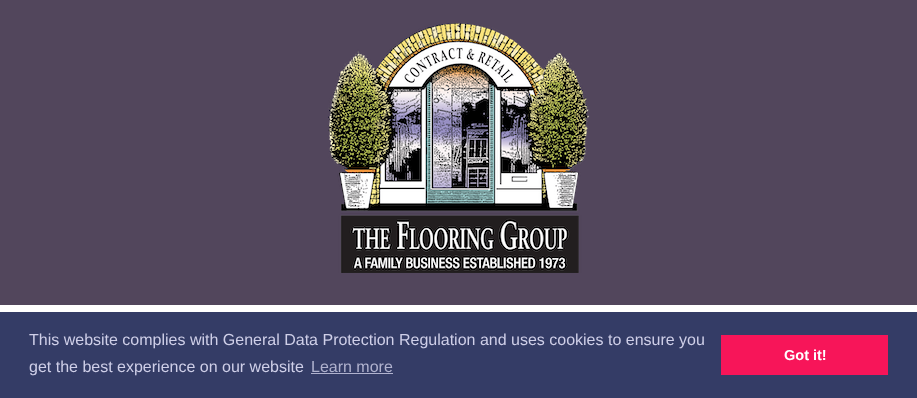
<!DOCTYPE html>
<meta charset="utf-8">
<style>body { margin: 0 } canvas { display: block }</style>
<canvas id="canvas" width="917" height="398"></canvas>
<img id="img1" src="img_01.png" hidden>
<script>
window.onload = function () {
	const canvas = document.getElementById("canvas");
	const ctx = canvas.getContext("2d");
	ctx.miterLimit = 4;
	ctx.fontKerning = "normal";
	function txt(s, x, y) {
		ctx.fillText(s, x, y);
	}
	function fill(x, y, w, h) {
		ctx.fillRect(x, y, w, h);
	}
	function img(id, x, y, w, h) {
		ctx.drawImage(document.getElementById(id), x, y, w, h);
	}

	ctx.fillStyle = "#52465C";
	fill(0, 0, 917, 398);
	img("img1", 328, 23, 261, 250);
	ctx.fillStyle = "#FFFFFF";
	fill(0, 305, 917, 7);
	ctx.fillStyle = "#343C66";
	fill(0, 312, 917, 86);
	ctx.fillStyle = "#B0B2CE";
	fill(311, 373, 82, 1);
	ctx.fillStyle = "#F71559";
	fill(721, 335, 167, 40);
	ctx.font = "16px Liberation Sans";
	ctx.fillStyle = "#CFCFE8";
	txt("This website complies with General Data Protection Regulation and uses cookies to ensure you", 29, 345);
	txt("get the best experience on our website", 29, 372);
	ctx.fillStyle = "#B0B2CE";
	txt("Learn more", 311, 372);
	ctx.font = "bold 14.5px Liberation Sans";
	ctx.fillStyle = "#FFFFFF";
	txt("Got it!", 784, 360);
};
</script>
